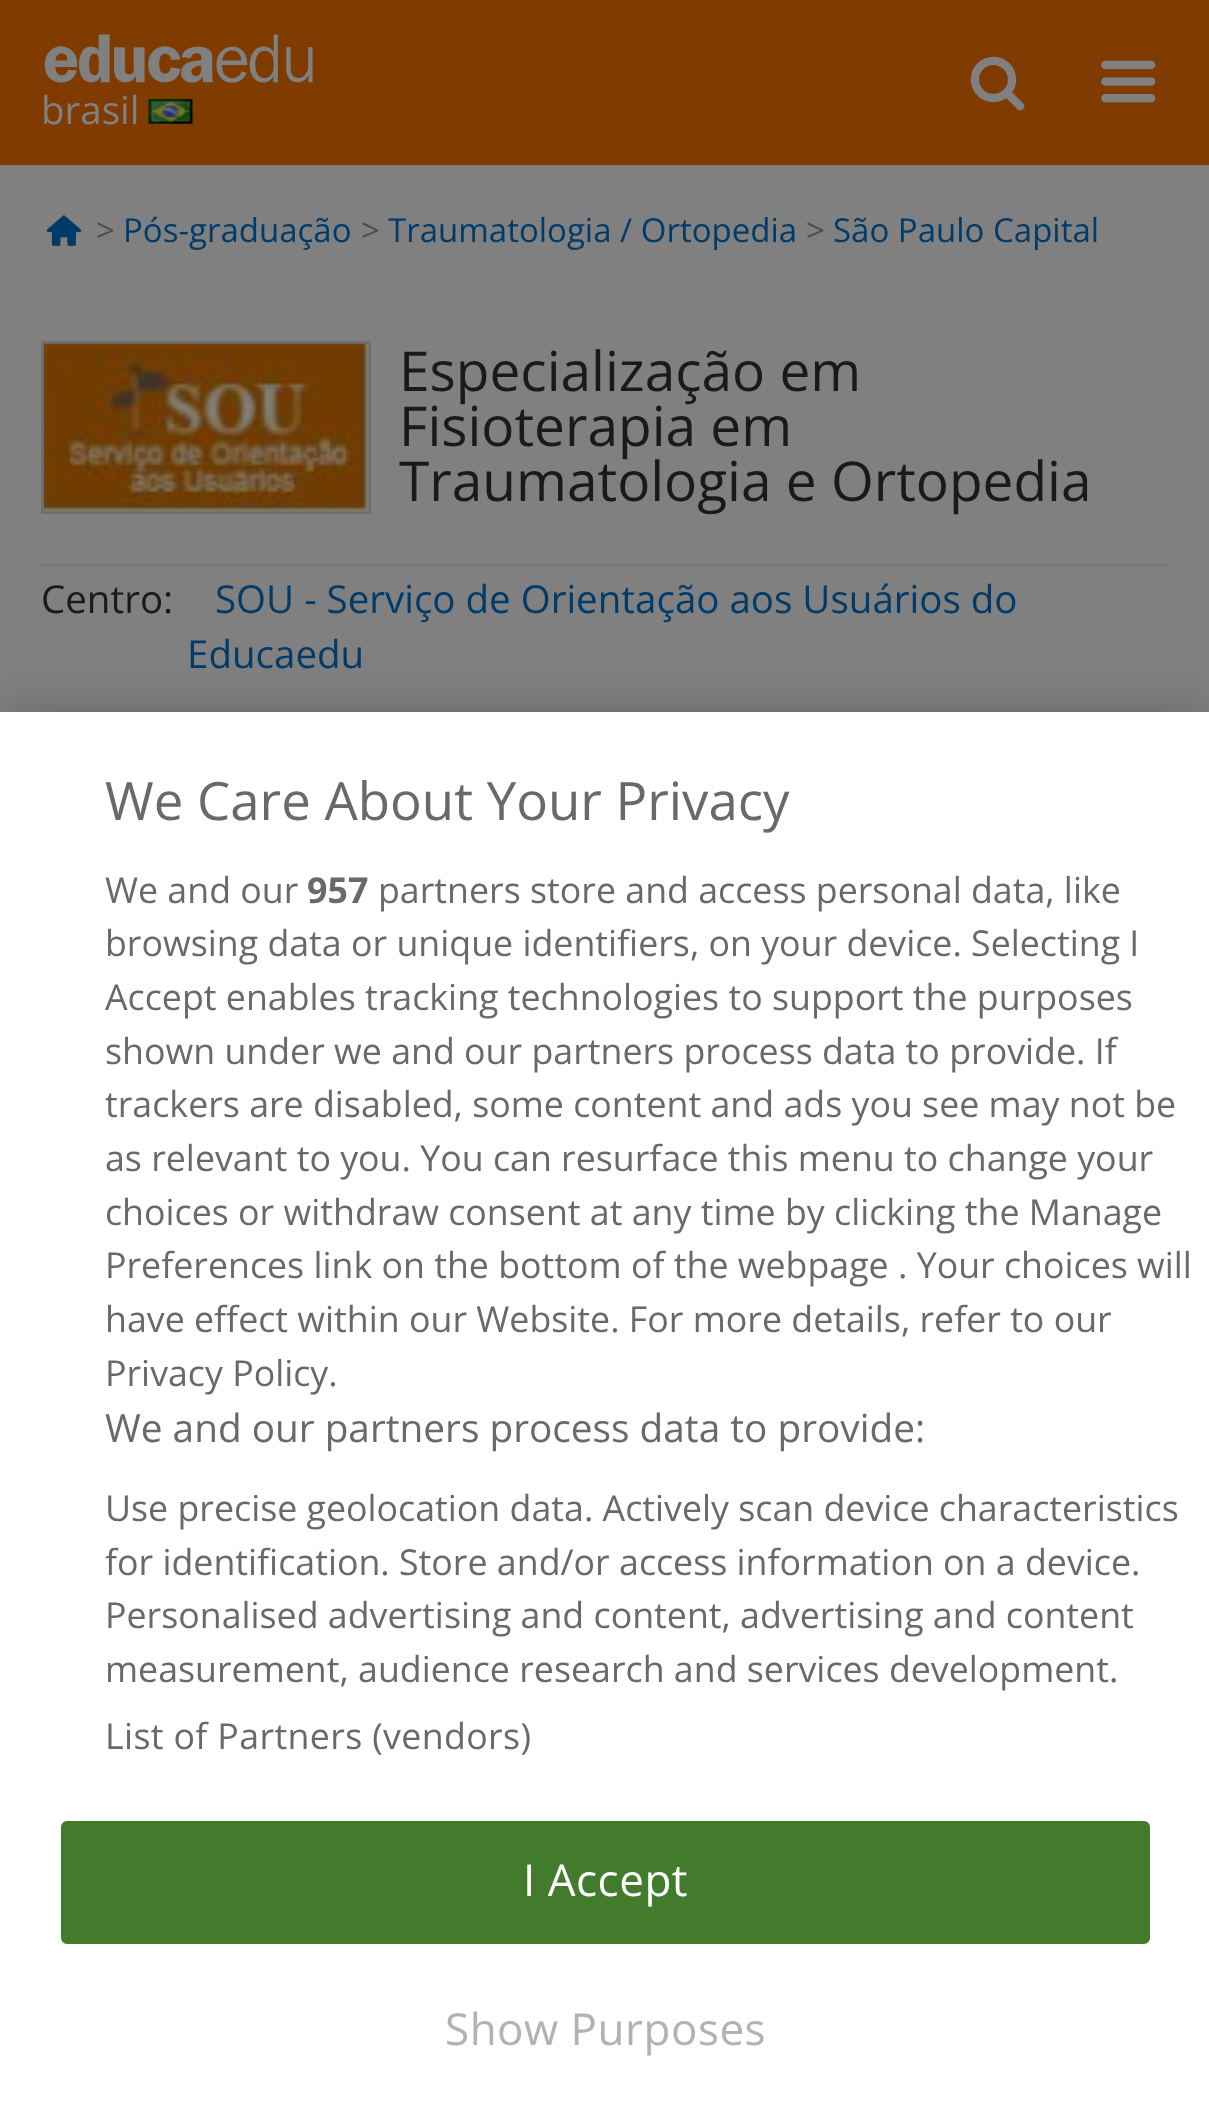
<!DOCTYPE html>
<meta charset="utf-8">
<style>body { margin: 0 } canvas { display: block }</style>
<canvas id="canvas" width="1209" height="2115"></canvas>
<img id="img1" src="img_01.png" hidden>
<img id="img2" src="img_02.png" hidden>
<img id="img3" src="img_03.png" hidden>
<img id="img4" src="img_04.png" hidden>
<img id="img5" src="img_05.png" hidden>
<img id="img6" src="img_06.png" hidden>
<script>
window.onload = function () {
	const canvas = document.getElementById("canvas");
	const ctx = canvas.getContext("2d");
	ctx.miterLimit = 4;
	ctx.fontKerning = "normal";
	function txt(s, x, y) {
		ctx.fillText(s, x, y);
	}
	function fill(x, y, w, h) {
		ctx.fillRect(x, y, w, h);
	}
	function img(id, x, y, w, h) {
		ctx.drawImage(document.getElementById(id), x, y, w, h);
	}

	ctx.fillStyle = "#808080";
	fill(0, 0, 1209, 2115);
	ctx.fillStyle = "#803B00";
	fill(0, 0, 1209, 165);
	img("img1", 970, 56, 55, 55);
	img("img2", 1101, 60, 55, 43);
	img("img3", 44, 34, 269, 49);
	img("img4", 148, 99, 45, 25);
	img("img5", 46, 215, 36, 31);
	ctx.fillStyle = "#777777";
	fill(41, 564, 1128, 3);
	ctx.strokeStyle = "#6F6F6F";
	ctx.lineWidth = 3;
	ctx.strokeRect(42.5, 342.5, 327, 170);
	img("img6", 44, 343, 325, 169);
	ctx.fillStyle = "rgba(0, 0, 0, 0.2)";
	ctx.filter = "blur(25px)";
	ctx.beginPath();
	ctx.rect(0, 712, 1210, 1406);
	ctx.fill();
	ctx.filter = "none";
	ctx.fillStyle = "#FFFFFF";
	fill(0, 712, 1209, 1403);
	ctx.fillStyle = "#437B2D";
	ctx.beginPath();
	ctx.roundRect(62.5, 1822.5, 1086, 120, 4.5);
	ctx.fill();
	ctx.strokeStyle = "#437B2D";
	ctx.stroke();
	ctx.font = "38.5px Open Sans";
	ctx.fillStyle = "#808080";
	txt("brasil", 41, 124);
	ctx.font = "33px Open Sans";
	ctx.fillStyle = "#4D4D4D";
	txt(">", 96, 242);
	ctx.fillStyle = "#003B69";
	txt("Pós-graduação", 123, 242);
	ctx.fillStyle = "#4D4D4D";
	txt(">", 361, 242);
	ctx.fillStyle = "#003B69";
	txt("Traumatologia / Ortopedia", 388, 242);
	ctx.fillStyle = "#4D4D4D";
	txt(">", 806, 242);
	ctx.fillStyle = "#003B69";
	txt("São Paulo Capital", 833, 242);
	ctx.font = "55px Open Sans";
	ctx.fillStyle = "#1A1A1A";
	txt("Especialização em", 399, 391);
	txt("Fisioterapia em", 399, 446);
	txt("Traumatologia e Ortopedia", 399, 501);
	ctx.font = "38.5px Open Sans";
	txt("Centro:", 41, 613);
	ctx.fillStyle = "#003B69";
	txt("SOU - Serviço de Orientação aos Usuários do", 215, 613);
	txt("Educaedu", 187, 668);
	ctx.font = "52.75px Open Sans";
	ctx.fillStyle = "#696969";
	txt("We Care About Your Privacy", 105, 820);
	ctx.font = "35.75px Open Sans";
	txt("We and our", 105, 903);
	ctx.font = "bold 35.75px Open Sans";
	txt("957", 307, 903);
	ctx.font = "35.75px Open Sans";
	txt("partners store and access personal data, like", 378, 903);
	txt("browsing data or unique identifiers, on your device. Selecting I", 105, 956);
	txt("Accept enables tracking technologies to support the purposes", 105, 1010);
	txt("shown under we and our partners process data to provide. If", 105, 1064);
	txt("trackers are disabled, some content and ads you see may not be", 105, 1117);
	txt("as relevant to you. You can resurface this menu to change your", 105, 1171);
	txt("choices or withdraw consent at any time by clicking the Manage", 105, 1225);
	txt("Preferences link on the bottom of the webpage . Your choices will", 105, 1278);
	txt("have effect within our Website. For more details, refer to our", 105, 1332);
	txt("Privacy Policy.", 105, 1386);
	ctx.font = "38.75px Open Sans";
	txt("We and our partners process data to provide:", 105, 1442);
	ctx.font = "35.75px Open Sans";
	txt("Use precise geolocation data. Actively scan device characteristics", 105, 1521);
	txt("for identification. Store and/or access information on a device.", 105, 1575);
	txt("Personalised advertising and content, advertising and content", 105, 1628);
	txt("measurement, audience research and services development.", 105, 1682);
	ctx.letterSpacing = "0.35px";
	txt("List of Partners (vendors)", 105, 1749);
	ctx.letterSpacing = "0.5px";
	ctx.font = "44px Open Sans";
	ctx.fillStyle = "#FFFFFF";
	txt("I Accept", 523, 1896);
	ctx.fillStyle = "#B3B1B1";
	txt("Show Purposes", 445, 2045);
};
</script>
